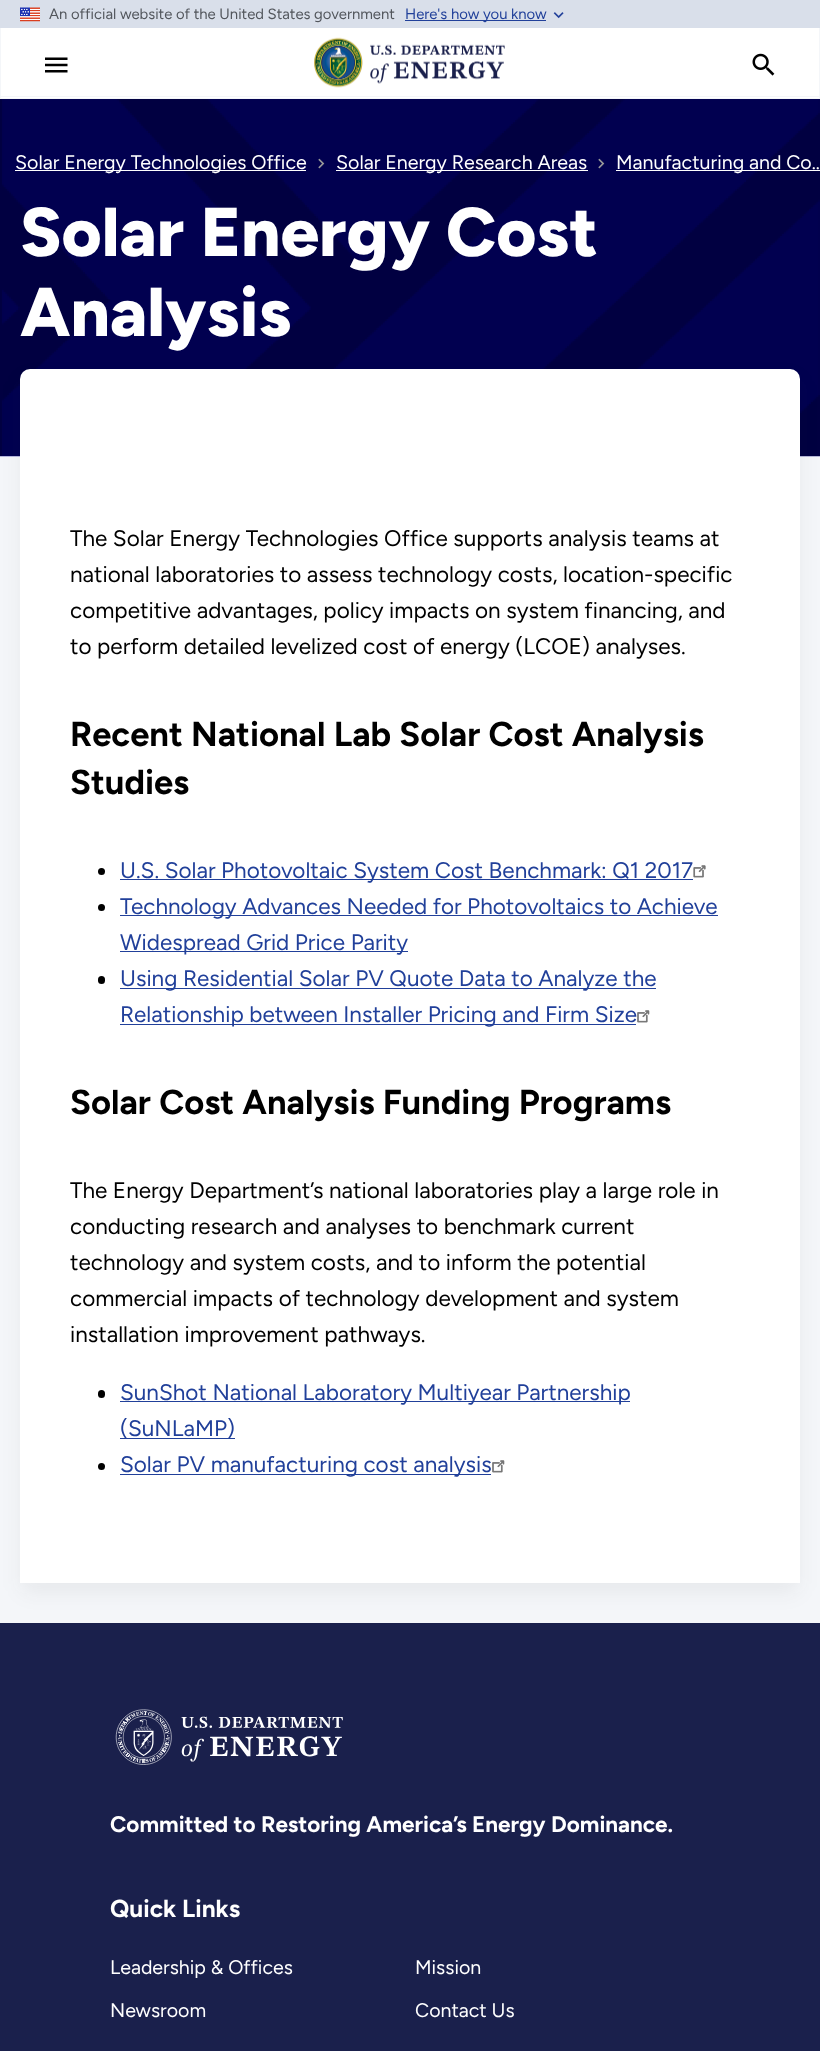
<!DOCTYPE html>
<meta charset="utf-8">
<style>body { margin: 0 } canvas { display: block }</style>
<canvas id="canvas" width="820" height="2051"></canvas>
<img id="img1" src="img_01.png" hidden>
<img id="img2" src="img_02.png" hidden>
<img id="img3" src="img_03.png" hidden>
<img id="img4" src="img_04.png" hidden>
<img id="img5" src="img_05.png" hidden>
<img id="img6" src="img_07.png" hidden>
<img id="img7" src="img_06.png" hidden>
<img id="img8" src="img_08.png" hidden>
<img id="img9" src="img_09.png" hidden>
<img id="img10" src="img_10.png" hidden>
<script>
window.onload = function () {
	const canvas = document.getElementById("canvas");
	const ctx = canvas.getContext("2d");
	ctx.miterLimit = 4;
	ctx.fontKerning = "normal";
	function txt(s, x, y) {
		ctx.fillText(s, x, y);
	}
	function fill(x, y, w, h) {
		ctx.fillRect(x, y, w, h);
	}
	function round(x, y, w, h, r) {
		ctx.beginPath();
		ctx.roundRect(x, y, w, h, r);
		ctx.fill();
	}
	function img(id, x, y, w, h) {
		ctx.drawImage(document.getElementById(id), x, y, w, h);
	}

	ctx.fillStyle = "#F4F6F9";
	fill(0, 0, 820, 2051);
	ctx.fillStyle = "#D9DFEA";
	fill(0, 0, 820, 28);
	img("img1", 20, 7, 20, 15);
	ctx.fillStyle = "#21409A";
	fill(405, 20, 141, 1);
	img("img2", 553, 12, 11, 7);
	ctx.fillStyle = "#FFFFFF";
	fill(1, 28, 818, 70);
	ctx.fillStyle = "#F4F6F9";
	fill(1, 96, 818, 1);
	img("img3", 45, 57, 23, 16);
	img("img4", 314, 37, 191, 51);
	img("img5", 752, 53, 23, 23);
	img("img6", 0, 99, 820, 358);
	ctx.fillStyle = "#FFFFFF";
	fill(15, 170, 291, 1);
	img("img7", 318, 158, 7, 11);
	fill(336, 170, 252, 1);
	img("img7", 598, 158, 7, 11);
	fill(616, 170, 204, 1);
	ctx.fillStyle = "#1A204C";
	fill(0, 1623, 820, 428);
	ctx.fillStyle = "rgba(36, 36, 36, 0.06)";
	ctx.filter = "blur(10px)";
	ctx.beginPath();
	ctx.roundRect(20, 379, 780, 1214, 10);
	ctx.fill();
	ctx.filter = "none";
	ctx.fillStyle = "#FFFFFF";
	ctx.beginPath();
	ctx.roundRect(20, 369, 780, 1214, [10, 10, 0, 0]);
	ctx.fill();
	ctx.fillStyle = "#000000";
	ctx.beginPath();
	ctx.arc(101.5, 871.5, 3.5, 0, Math.PI * 2);
	ctx.fill();
	ctx.fillStyle = "#21409A";
	fill(120, 879, 573, 1);
	img("img8", 693, 865, 13, 13);
	ctx.fillStyle = "#000000";
	ctx.beginPath();
	ctx.arc(101.5, 907.5, 3.5, 0, Math.PI * 2);
	ctx.fill();
	ctx.fillStyle = "#21409A";
	fill(120, 915, 598, 1);
	fill(120, 951, 288, 1);
	ctx.fillStyle = "#000000";
	round(98, 976, 7, 8, 3.5);
	ctx.fillStyle = "#21409A";
	fill(120, 988, 536, 1);
	fill(120, 1024, 516, 1);
	img("img9", 637, 1010, 13, 13);
	ctx.fillStyle = "#000000";
	round(98, 1390, 7, 8, 3.5);
	ctx.fillStyle = "#21409A";
	fill(120, 1401, 510, 1);
	fill(120, 1438, 115, 1);
	ctx.fillStyle = "#000000";
	ctx.beginPath();
	ctx.arc(101.5, 1466.5, 3.5, 0, Math.PI * 2);
	ctx.fill();
	ctx.fillStyle = "#21409A";
	fill(120, 1474, 371, 1);
	img("img9", 492, 1460, 13, 13);
	img("img10", 115, 1709, 228, 56);
	ctx.font = "300 14.85px 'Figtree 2'";
	ctx.fillStyle = "#52565C";
	txt("An official website of the United States government", 49, 19);
	ctx.fillStyle = "#21409A";
	txt("Here's how you know", 405, 19);
	ctx.font = "300 19.6px 'Figtree 2'";
	ctx.fillStyle = "#FFFFFF";
	txt("Solar Energy Technologies Office", 15, 169);
	txt("Solar Energy Research Areas", 336, 169);
	txt("Manufacturing and Co…", 616, 169);
	ctx.font = "800 69px Figtree";
	txt("Solar Energy Cost", 20, 256);
	txt("Analysis", 20, 336);
	ctx.font = "300 22.5px 'Figtree 2'";
	ctx.fillStyle = "#000000";
	txt("The Solar Energy Technologies Office supports analysis teams at", 70, 546);
	txt("national laboratories to assess technology costs, location-specific", 70, 582);
	txt("competitive advantages, policy impacts on system financing, and", 70, 618);
	txt("to perform detailed levelized cost of energy (LCOE) analyses.", 70, 654);
	ctx.font = "300 34.5px Figtree";
	txt("Recent National Lab Solar Cost Analysis", 70, 746);
	txt("Studies", 70, 794);
	ctx.font = "300 22.5px 'Figtree 2'";
	ctx.fillStyle = "#21409A";
	txt("U.S. Solar Photovoltaic System Cost Benchmark: Q1 2017", 120, 878);
	txt("Technology Advances Needed for Photovoltaics to Achieve", 120, 914);
	txt("Widespread Grid Price Parity", 120, 950);
	txt("Using Residential Solar PV Quote Data to Analyze the", 120, 986);
	txt("Relationship between Installer Pricing and Firm Size", 120, 1022);
	ctx.font = "300 34.5px Figtree";
	ctx.fillStyle = "#000000";
	txt("Solar Cost Analysis Funding Programs", 70, 1114);
	ctx.font = "300 22.5px 'Figtree 2'";
	txt("The Energy Department’s national laboratories play a large role in", 70, 1198);
	txt("conducting research and analyses to benchmark current", 70, 1234);
	txt("technology and system costs, and to inform the potential", 70, 1270);
	txt("commercial impacts of technology development and system", 70, 1306);
	txt("installation improvement pathways.", 70, 1342);
	ctx.fillStyle = "#21409A";
	txt("SunShot National Laboratory Multiyear Partnership", 120, 1400);
	txt("(SuNLaMP)", 120, 1436);
	txt("Solar PV manufacturing cost analysis", 120, 1472);
	ctx.font = "300 22.5px Figtree";
	ctx.fillStyle = "#FFFFFF";
	txt("Committed to Restoring America’s Energy Dominance.", 110, 1832);
	ctx.font = "300 24.5px Figtree";
	txt("Quick Links", 110, 1917);
	ctx.font = "300 19.6px 'Figtree 2'";
	txt("Leadership & Offices", 110, 1974);
	txt("Mission", 415, 1974);
	txt("Newsroom", 110, 2017);
	txt("Contact Us", 415, 2017);
};
</script>
